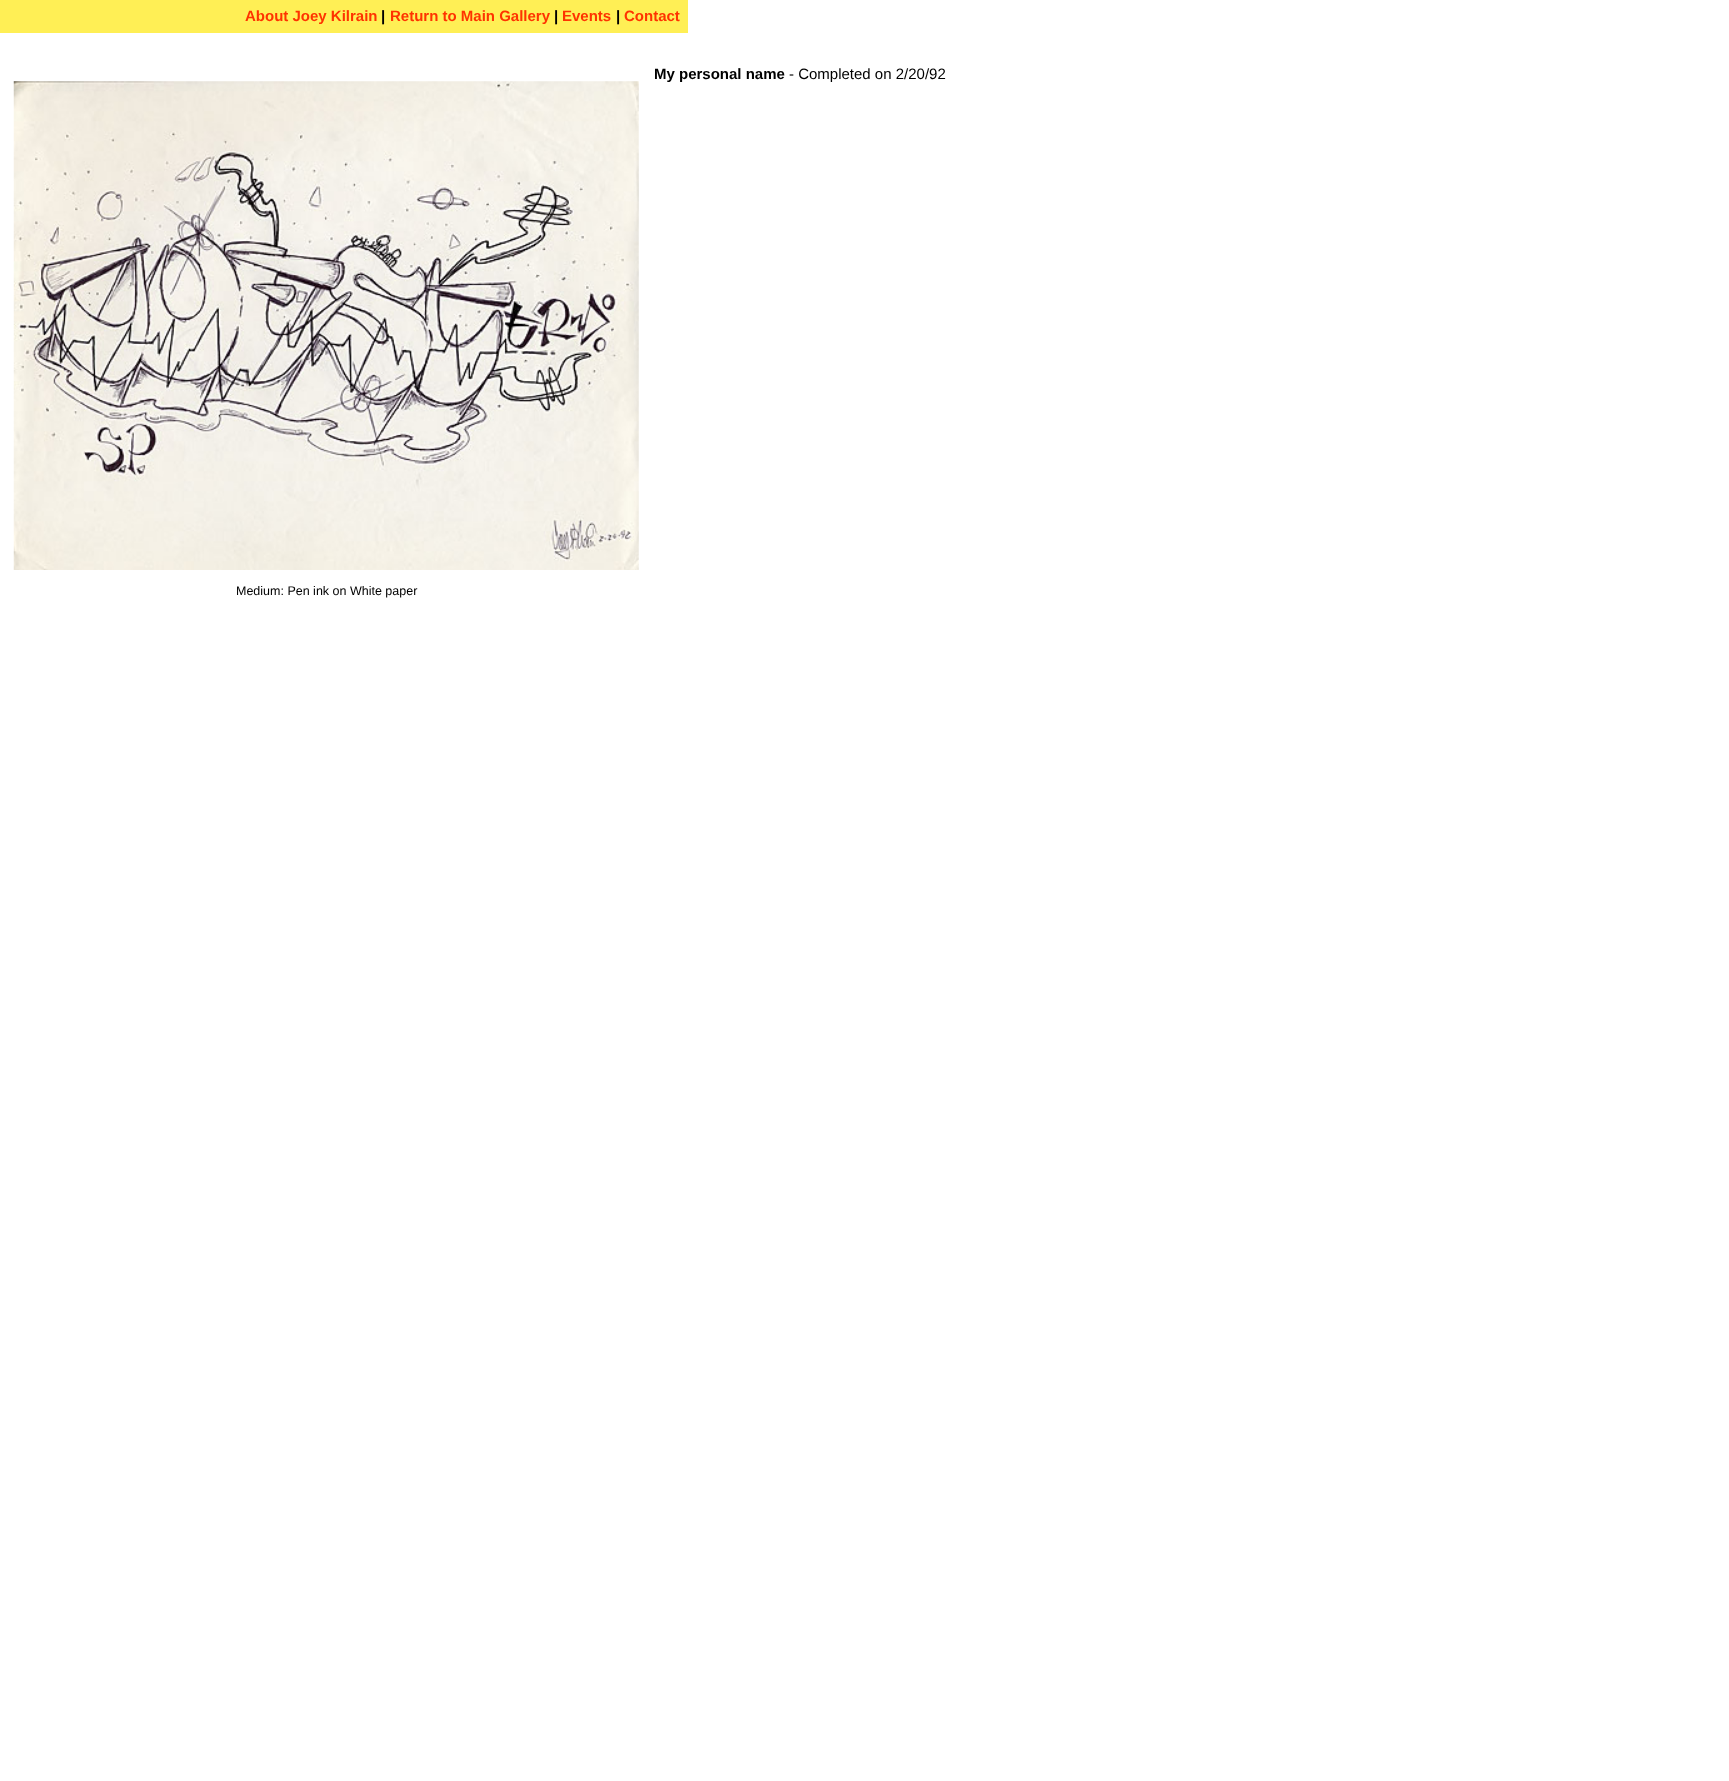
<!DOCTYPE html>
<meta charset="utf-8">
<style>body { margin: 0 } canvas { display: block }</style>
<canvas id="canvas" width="1729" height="1781"></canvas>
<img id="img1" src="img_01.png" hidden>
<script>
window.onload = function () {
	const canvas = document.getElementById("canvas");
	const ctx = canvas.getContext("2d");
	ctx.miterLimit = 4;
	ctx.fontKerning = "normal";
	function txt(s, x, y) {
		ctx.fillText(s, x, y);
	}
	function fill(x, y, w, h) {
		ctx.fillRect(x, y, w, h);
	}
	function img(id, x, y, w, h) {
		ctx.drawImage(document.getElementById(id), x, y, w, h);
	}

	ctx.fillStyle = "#FFFFFF";
	fill(0, 0, 1729, 1781);
	ctx.fillStyle = "#FFEF55";
	fill(0, 0, 688, 33);
	img("img1", 13, 81, 626, 489);
	ctx.font = "bold 15px Liberation Sans";
	ctx.fillStyle = "#FF3300";
	txt("About Joey Kilrain", 245, 21);
	ctx.fillStyle = "#000000";
	txt("|", 381, 21);
	ctx.fillStyle = "#FF3300";
	txt("Return to Main Gallery", 390, 21);
	ctx.fillStyle = "#000000";
	txt("|", 554, 21);
	ctx.fillStyle = "#FF3300";
	txt("Events", 562, 21);
	ctx.fillStyle = "#000000";
	txt("|", 616, 21);
	ctx.fillStyle = "#FF3300";
	txt("Contact", 624, 21);
	ctx.fillStyle = "#000000";
	txt("My personal name", 654, 79);
	ctx.font = "15px Liberation Sans";
	txt("- Completed on 2/20/92", 789, 79);
	ctx.font = "12.5px Liberation Sans";
	txt("Medium: Pen ink on White paper", 236, 595);
};
</script>
